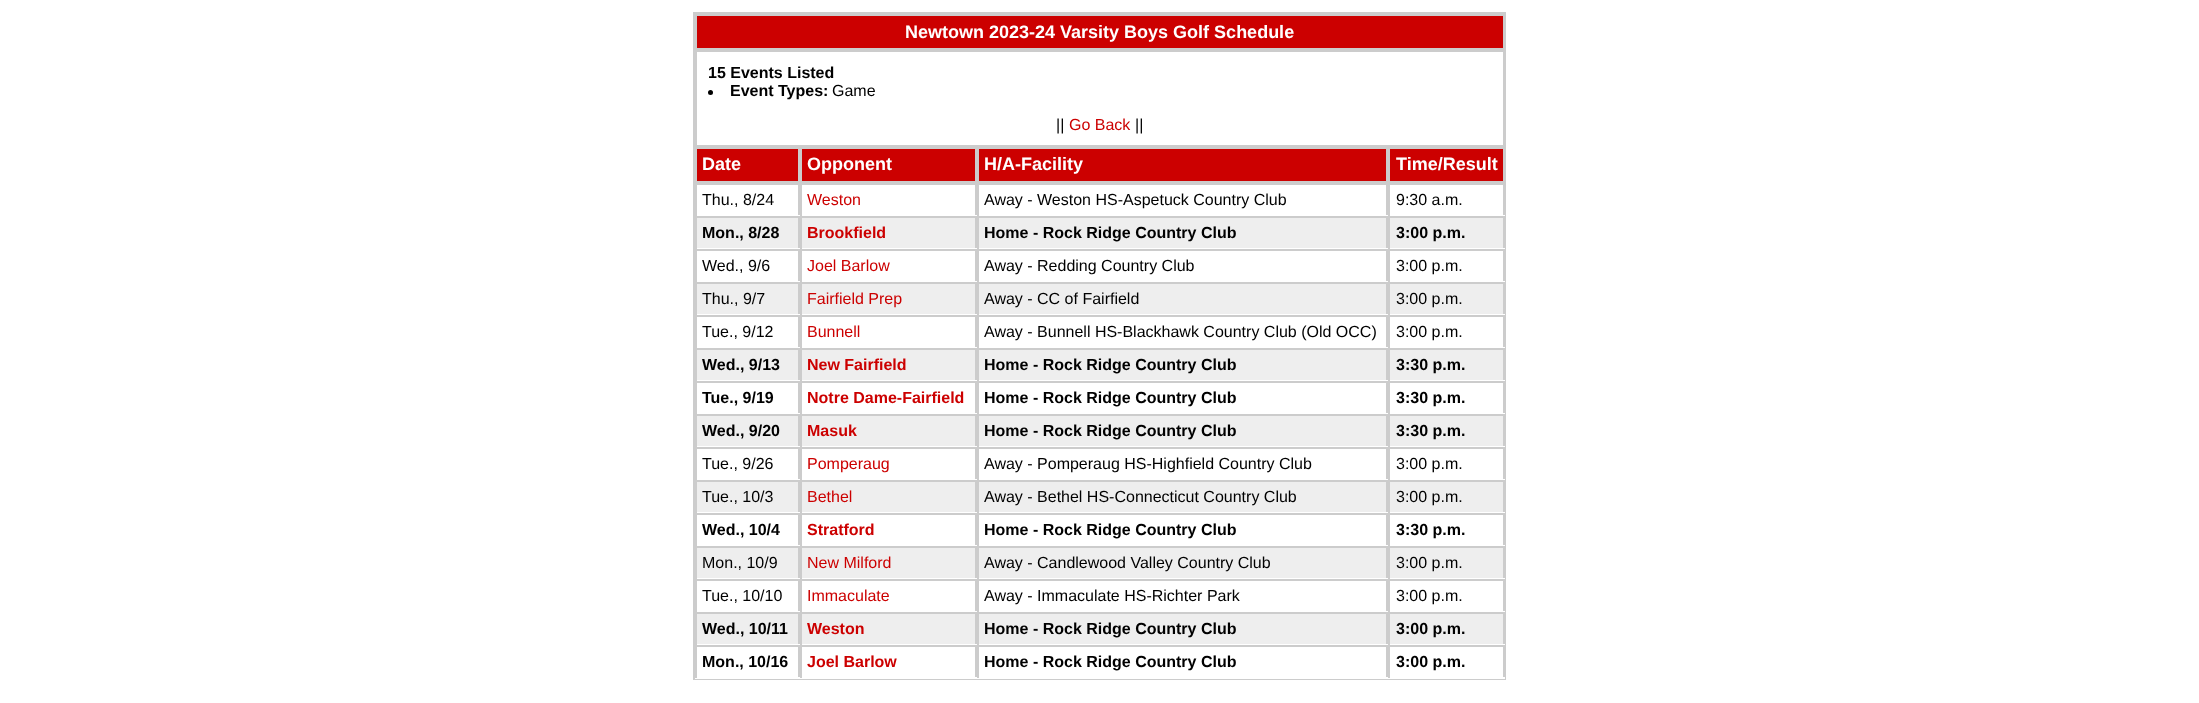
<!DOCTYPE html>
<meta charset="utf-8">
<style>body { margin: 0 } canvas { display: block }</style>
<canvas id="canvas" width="2199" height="703"></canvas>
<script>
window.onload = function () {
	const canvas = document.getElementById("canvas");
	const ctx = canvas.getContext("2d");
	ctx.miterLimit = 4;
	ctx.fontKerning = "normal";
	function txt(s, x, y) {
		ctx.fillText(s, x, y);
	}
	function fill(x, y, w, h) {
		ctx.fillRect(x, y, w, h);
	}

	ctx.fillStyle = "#FFFFFF";
	fill(0, 0, 2199, 703);
	ctx.fillStyle = "#CCCCCC";
	fill(693, 12, 813, 668);
	ctx.fillStyle = "#CC0000";
	fill(697, 16, 806, 32);
	ctx.fillStyle = "#FFFFFF";
	fill(697, 52, 806, 93);
	ctx.fillStyle = "#000000";
	ctx.beginPath();
	ctx.arc(710.5, 92.5, 2.5, 0, Math.PI * 2);
	ctx.fill();
	ctx.fillStyle = "#CC0000";
	fill(697, 149, 101, 32);
	fill(802, 149, 173, 32);
	fill(979, 149, 407, 32);
	fill(1390, 149, 113, 32);
	ctx.fillStyle = "#FFFFFF";
	fill(697, 185, 806, 30);
	ctx.fillStyle = "#CCCCCC";
	fill(798, 183, 2, 33);
	ctx.fillStyle = "#FFFFFF";
	fill(695, 215, 105, 1);
	ctx.fillStyle = "#CCCCCC";
	fill(695, 215, 2, 1);
	fill(975, 183, 2, 33);
	ctx.fillStyle = "#FFFFFF";
	fill(800, 215, 177, 1);
	ctx.fillStyle = "#CCCCCC";
	fill(800, 183, 2, 33);
	fill(1386, 183, 2, 33);
	ctx.fillStyle = "#FFFFFF";
	fill(977, 215, 528, 1);
	ctx.fillStyle = "#CCCCCC";
	fill(977, 183, 2, 33);
	fill(1388, 183, 2, 33);
	ctx.fillStyle = "#EEEEEE";
	fill(697, 218, 806, 30);
	ctx.fillStyle = "#CCCCCC";
	fill(798, 216, 2, 33);
	ctx.fillStyle = "#FFFFFF";
	fill(695, 248, 105, 1);
	ctx.fillStyle = "#CCCCCC";
	fill(695, 248, 2, 1);
	fill(975, 216, 2, 33);
	ctx.fillStyle = "#FFFFFF";
	fill(800, 248, 177, 1);
	ctx.fillStyle = "#CCCCCC";
	fill(800, 216, 2, 33);
	fill(1386, 216, 2, 33);
	ctx.fillStyle = "#FFFFFF";
	fill(977, 248, 528, 1);
	ctx.fillStyle = "#CCCCCC";
	fill(977, 216, 2, 33);
	fill(1388, 216, 2, 33);
	ctx.fillStyle = "#FFFFFF";
	fill(697, 251, 806, 30);
	ctx.fillStyle = "#CCCCCC";
	fill(798, 249, 2, 33);
	ctx.fillStyle = "#FFFFFF";
	fill(695, 281, 105, 1);
	ctx.fillStyle = "#CCCCCC";
	fill(695, 281, 2, 1);
	fill(975, 249, 2, 33);
	ctx.fillStyle = "#FFFFFF";
	fill(800, 281, 177, 1);
	ctx.fillStyle = "#CCCCCC";
	fill(800, 249, 2, 33);
	fill(1386, 249, 2, 33);
	ctx.fillStyle = "#FFFFFF";
	fill(977, 281, 528, 1);
	ctx.fillStyle = "#CCCCCC";
	fill(977, 249, 2, 33);
	fill(1388, 249, 2, 33);
	ctx.fillStyle = "#EEEEEE";
	fill(697, 284, 806, 30);
	ctx.fillStyle = "#CCCCCC";
	fill(798, 282, 2, 33);
	ctx.fillStyle = "#FFFFFF";
	fill(695, 314, 105, 1);
	ctx.fillStyle = "#CCCCCC";
	fill(695, 314, 2, 1);
	fill(975, 282, 2, 33);
	ctx.fillStyle = "#FFFFFF";
	fill(800, 314, 177, 1);
	ctx.fillStyle = "#CCCCCC";
	fill(800, 282, 2, 33);
	fill(1386, 282, 2, 33);
	ctx.fillStyle = "#FFFFFF";
	fill(977, 314, 528, 1);
	ctx.fillStyle = "#CCCCCC";
	fill(977, 282, 2, 33);
	fill(1388, 282, 2, 33);
	ctx.fillStyle = "#FFFFFF";
	fill(697, 317, 806, 30);
	ctx.fillStyle = "#CCCCCC";
	fill(798, 315, 2, 33);
	ctx.fillStyle = "#FFFFFF";
	fill(695, 347, 105, 1);
	ctx.fillStyle = "#CCCCCC";
	fill(695, 347, 2, 1);
	fill(975, 315, 2, 33);
	ctx.fillStyle = "#FFFFFF";
	fill(800, 347, 177, 1);
	ctx.fillStyle = "#CCCCCC";
	fill(800, 315, 2, 33);
	fill(1386, 315, 2, 33);
	ctx.fillStyle = "#FFFFFF";
	fill(977, 347, 528, 1);
	ctx.fillStyle = "#CCCCCC";
	fill(977, 315, 2, 33);
	fill(1388, 315, 2, 33);
	ctx.fillStyle = "#EEEEEE";
	fill(697, 350, 806, 30);
	ctx.fillStyle = "#CCCCCC";
	fill(798, 348, 2, 33);
	ctx.fillStyle = "#FFFFFF";
	fill(695, 380, 105, 1);
	ctx.fillStyle = "#CCCCCC";
	fill(695, 380, 2, 1);
	fill(975, 348, 2, 33);
	ctx.fillStyle = "#FFFFFF";
	fill(800, 380, 177, 1);
	ctx.fillStyle = "#CCCCCC";
	fill(800, 348, 2, 33);
	fill(1386, 348, 2, 33);
	ctx.fillStyle = "#FFFFFF";
	fill(977, 380, 528, 1);
	ctx.fillStyle = "#CCCCCC";
	fill(977, 348, 2, 33);
	fill(1388, 348, 2, 33);
	ctx.fillStyle = "#FFFFFF";
	fill(697, 383, 806, 30);
	ctx.fillStyle = "#CCCCCC";
	fill(798, 381, 2, 33);
	ctx.fillStyle = "#FFFFFF";
	fill(695, 413, 105, 1);
	ctx.fillStyle = "#CCCCCC";
	fill(695, 413, 2, 1);
	fill(975, 381, 2, 33);
	ctx.fillStyle = "#FFFFFF";
	fill(800, 413, 177, 1);
	ctx.fillStyle = "#CCCCCC";
	fill(800, 381, 2, 33);
	fill(1386, 381, 2, 33);
	ctx.fillStyle = "#FFFFFF";
	fill(977, 413, 528, 1);
	ctx.fillStyle = "#CCCCCC";
	fill(977, 381, 2, 33);
	fill(1388, 381, 2, 33);
	ctx.fillStyle = "#EEEEEE";
	fill(697, 416, 806, 30);
	ctx.fillStyle = "#CCCCCC";
	fill(798, 414, 2, 33);
	ctx.fillStyle = "#FFFFFF";
	fill(695, 446, 105, 1);
	ctx.fillStyle = "#CCCCCC";
	fill(695, 446, 2, 1);
	fill(975, 414, 2, 33);
	ctx.fillStyle = "#FFFFFF";
	fill(800, 446, 177, 1);
	ctx.fillStyle = "#CCCCCC";
	fill(800, 414, 2, 33);
	fill(1386, 414, 2, 33);
	ctx.fillStyle = "#FFFFFF";
	fill(977, 446, 528, 1);
	ctx.fillStyle = "#CCCCCC";
	fill(977, 414, 2, 33);
	fill(1388, 414, 2, 33);
	ctx.fillStyle = "#FFFFFF";
	fill(697, 449, 806, 30);
	ctx.fillStyle = "#CCCCCC";
	fill(798, 447, 2, 33);
	ctx.fillStyle = "#FFFFFF";
	fill(695, 479, 105, 1);
	ctx.fillStyle = "#CCCCCC";
	fill(695, 479, 2, 1);
	fill(975, 447, 2, 33);
	ctx.fillStyle = "#FFFFFF";
	fill(800, 479, 177, 1);
	ctx.fillStyle = "#CCCCCC";
	fill(800, 447, 2, 33);
	fill(1386, 447, 2, 33);
	ctx.fillStyle = "#FFFFFF";
	fill(977, 479, 528, 1);
	ctx.fillStyle = "#CCCCCC";
	fill(977, 447, 2, 33);
	fill(1388, 447, 2, 33);
	ctx.fillStyle = "#EEEEEE";
	fill(697, 482, 806, 30);
	ctx.fillStyle = "#CCCCCC";
	fill(798, 480, 2, 33);
	ctx.fillStyle = "#FFFFFF";
	fill(695, 512, 105, 1);
	ctx.fillStyle = "#CCCCCC";
	fill(695, 512, 2, 1);
	fill(975, 480, 2, 33);
	ctx.fillStyle = "#FFFFFF";
	fill(800, 512, 177, 1);
	ctx.fillStyle = "#CCCCCC";
	fill(800, 480, 2, 33);
	fill(1386, 480, 2, 33);
	ctx.fillStyle = "#FFFFFF";
	fill(977, 512, 528, 1);
	ctx.fillStyle = "#CCCCCC";
	fill(977, 480, 2, 33);
	fill(1388, 480, 2, 33);
	ctx.fillStyle = "#FFFFFF";
	fill(697, 515, 806, 30);
	ctx.fillStyle = "#CCCCCC";
	fill(798, 513, 2, 33);
	ctx.fillStyle = "#FFFFFF";
	fill(695, 545, 105, 1);
	ctx.fillStyle = "#CCCCCC";
	fill(695, 545, 2, 1);
	fill(975, 513, 2, 33);
	ctx.fillStyle = "#FFFFFF";
	fill(800, 545, 177, 1);
	ctx.fillStyle = "#CCCCCC";
	fill(800, 513, 2, 33);
	fill(1386, 513, 2, 33);
	ctx.fillStyle = "#FFFFFF";
	fill(977, 545, 528, 1);
	ctx.fillStyle = "#CCCCCC";
	fill(977, 513, 2, 33);
	fill(1388, 513, 2, 33);
	ctx.fillStyle = "#EEEEEE";
	fill(697, 548, 806, 30);
	ctx.fillStyle = "#CCCCCC";
	fill(798, 546, 2, 33);
	ctx.fillStyle = "#FFFFFF";
	fill(695, 578, 105, 1);
	ctx.fillStyle = "#CCCCCC";
	fill(695, 578, 2, 1);
	fill(975, 546, 2, 33);
	ctx.fillStyle = "#FFFFFF";
	fill(800, 578, 177, 1);
	ctx.fillStyle = "#CCCCCC";
	fill(800, 546, 2, 33);
	fill(1386, 546, 2, 33);
	ctx.fillStyle = "#FFFFFF";
	fill(977, 578, 528, 1);
	ctx.fillStyle = "#CCCCCC";
	fill(977, 546, 2, 33);
	fill(1388, 546, 2, 33);
	ctx.fillStyle = "#FFFFFF";
	fill(697, 581, 806, 30);
	ctx.fillStyle = "#CCCCCC";
	fill(798, 579, 2, 33);
	ctx.fillStyle = "#FFFFFF";
	fill(695, 611, 105, 1);
	ctx.fillStyle = "#CCCCCC";
	fill(695, 611, 2, 1);
	fill(975, 579, 2, 33);
	ctx.fillStyle = "#FFFFFF";
	fill(800, 611, 177, 1);
	ctx.fillStyle = "#CCCCCC";
	fill(800, 579, 2, 33);
	fill(1386, 579, 2, 33);
	ctx.fillStyle = "#FFFFFF";
	fill(977, 611, 528, 1);
	ctx.fillStyle = "#CCCCCC";
	fill(977, 579, 2, 33);
	fill(1388, 579, 2, 33);
	ctx.fillStyle = "#EEEEEE";
	fill(697, 614, 806, 30);
	ctx.fillStyle = "#CCCCCC";
	fill(798, 612, 2, 33);
	ctx.fillStyle = "#FFFFFF";
	fill(695, 644, 105, 1);
	ctx.fillStyle = "#CCCCCC";
	fill(695, 644, 2, 1);
	fill(975, 612, 2, 33);
	ctx.fillStyle = "#FFFFFF";
	fill(800, 644, 177, 1);
	ctx.fillStyle = "#CCCCCC";
	fill(800, 612, 2, 33);
	fill(1386, 612, 2, 33);
	ctx.fillStyle = "#FFFFFF";
	fill(977, 644, 528, 1);
	ctx.fillStyle = "#CCCCCC";
	fill(977, 612, 2, 33);
	fill(1388, 612, 2, 33);
	ctx.fillStyle = "#FFFFFF";
	fill(697, 647, 806, 30);
	ctx.fillStyle = "#CCCCCC";
	fill(798, 645, 2, 33);
	ctx.fillStyle = "#FFFFFF";
	fill(695, 677, 105, 2);
	ctx.fillStyle = "#CCCCCC";
	fill(695, 677, 2, 1);
	fill(975, 645, 2, 33);
	ctx.fillStyle = "#FFFFFF";
	fill(800, 677, 177, 2);
	ctx.fillStyle = "#CCCCCC";
	fill(800, 645, 2, 33);
	fill(1386, 645, 2, 33);
	ctx.fillStyle = "#FFFFFF";
	fill(977, 677, 528, 2);
	ctx.fillStyle = "#CCCCCC";
	fill(977, 645, 2, 33);
	fill(1388, 645, 2, 33);
	ctx.font = "bold 18px Liberation Sans";
	ctx.fillStyle = "#FFFFFF";
	txt("Newtown 2023-24 Varsity Boys Golf Schedule", 905, 38);
	ctx.font = "bold 16px Liberation Sans";
	ctx.fillStyle = "#000000";
	txt("15 Events Listed", 708, 78);
	txt("Event Types:", 730, 96);
	ctx.font = "16px Liberation Sans";
	txt("Game", 832, 96);
	txt("||", 1056, 130);
	ctx.fillStyle = "#CC0000";
	txt("Go Back", 1069, 130);
	ctx.fillStyle = "#000000";
	txt("||", 1135, 130);
	ctx.font = "bold 18px Liberation Sans";
	ctx.fillStyle = "#FFFFFF";
	txt("Date", 702, 170);
	txt("Opponent", 807, 170);
	txt("H/A-Facility", 984, 170);
	txt("Time/Result", 1396, 170);
	ctx.font = "16px Liberation Sans";
	ctx.fillStyle = "#000000";
	txt("Thu., 8/24", 702, 205);
	ctx.fillStyle = "#CC0000";
	txt("Weston", 807, 205);
	ctx.fillStyle = "#000000";
	txt("Away - Weston HS-Aspetuck Country Club", 984, 205);
	txt("9:30 a.m.", 1396, 205);
	ctx.font = "bold 16px Liberation Sans";
	txt("Mon., 8/28", 702, 238);
	ctx.fillStyle = "#CC0000";
	txt("Brookfield", 807, 238);
	ctx.fillStyle = "#000000";
	txt("Home - Rock Ridge Country Club", 984, 238);
	txt("3:00 p.m.", 1396, 238);
	ctx.font = "16px Liberation Sans";
	txt("Wed., 9/6", 702, 271);
	ctx.fillStyle = "#CC0000";
	txt("Joel Barlow", 807, 271);
	ctx.fillStyle = "#000000";
	txt("Away - Redding Country Club", 984, 271);
	txt("3:00 p.m.", 1396, 271);
	txt("Thu., 9/7", 702, 304);
	ctx.fillStyle = "#CC0000";
	txt("Fairfield Prep", 807, 304);
	ctx.fillStyle = "#000000";
	txt("Away - CC of Fairfield", 984, 304);
	txt("3:00 p.m.", 1396, 304);
	txt("Tue., 9/12", 702, 337);
	ctx.fillStyle = "#CC0000";
	txt("Bunnell", 807, 337);
	ctx.fillStyle = "#000000";
	txt("Away - Bunnell HS-Blackhawk Country Club (Old OCC)", 984, 337);
	txt("3:00 p.m.", 1396, 337);
	ctx.font = "bold 16px Liberation Sans";
	txt("Wed., 9/13", 702, 370);
	ctx.fillStyle = "#CC0000";
	txt("New Fairfield", 807, 370);
	ctx.fillStyle = "#000000";
	txt("Home - Rock Ridge Country Club", 984, 370);
	txt("3:30 p.m.", 1396, 370);
	txt("Tue., 9/19", 702, 403);
	ctx.fillStyle = "#CC0000";
	txt("Notre Dame-Fairfield", 807, 403);
	ctx.fillStyle = "#000000";
	txt("Home - Rock Ridge Country Club", 984, 403);
	txt("3:30 p.m.", 1396, 403);
	txt("Wed., 9/20", 702, 436);
	ctx.fillStyle = "#CC0000";
	txt("Masuk", 807, 436);
	ctx.fillStyle = "#000000";
	txt("Home - Rock Ridge Country Club", 984, 436);
	txt("3:30 p.m.", 1396, 436);
	ctx.font = "16px Liberation Sans";
	txt("Tue., 9/26", 702, 469);
	ctx.fillStyle = "#CC0000";
	txt("Pomperaug", 807, 469);
	ctx.fillStyle = "#000000";
	txt("Away - Pomperaug HS-Highfield Country Club", 984, 469);
	txt("3:00 p.m.", 1396, 469);
	txt("Tue., 10/3", 702, 502);
	ctx.fillStyle = "#CC0000";
	txt("Bethel", 807, 502);
	ctx.fillStyle = "#000000";
	txt("Away - Bethel HS-Connecticut Country Club", 984, 502);
	txt("3:00 p.m.", 1396, 502);
	ctx.font = "bold 16px Liberation Sans";
	txt("Wed., 10/4", 702, 535);
	ctx.fillStyle = "#CC0000";
	txt("Stratford", 807, 535);
	ctx.fillStyle = "#000000";
	txt("Home - Rock Ridge Country Club", 984, 535);
	txt("3:30 p.m.", 1396, 535);
	ctx.font = "16px Liberation Sans";
	txt("Mon., 10/9", 702, 568);
	ctx.fillStyle = "#CC0000";
	txt("New Milford", 807, 568);
	ctx.fillStyle = "#000000";
	txt("Away - Candlewood Valley Country Club", 984, 568);
	txt("3:00 p.m.", 1396, 568);
	txt("Tue., 10/10", 702, 601);
	ctx.fillStyle = "#CC0000";
	txt("Immaculate", 807, 601);
	ctx.fillStyle = "#000000";
	txt("Away - Immaculate HS-Richter Park", 984, 601);
	txt("3:00 p.m.", 1396, 601);
	ctx.font = "bold 16px Liberation Sans";
	txt("Wed., 10/11", 702, 634);
	ctx.fillStyle = "#CC0000";
	txt("Weston", 807, 634);
	ctx.fillStyle = "#000000";
	txt("Home - Rock Ridge Country Club", 984, 634);
	txt("3:00 p.m.", 1396, 634);
	txt("Mon., 10/16", 702, 667);
	ctx.fillStyle = "#CC0000";
	txt("Joel Barlow", 807, 667);
	ctx.fillStyle = "#000000";
	txt("Home - Rock Ridge Country Club", 984, 667);
	txt("3:00 p.m.", 1396, 667);
};
</script>
